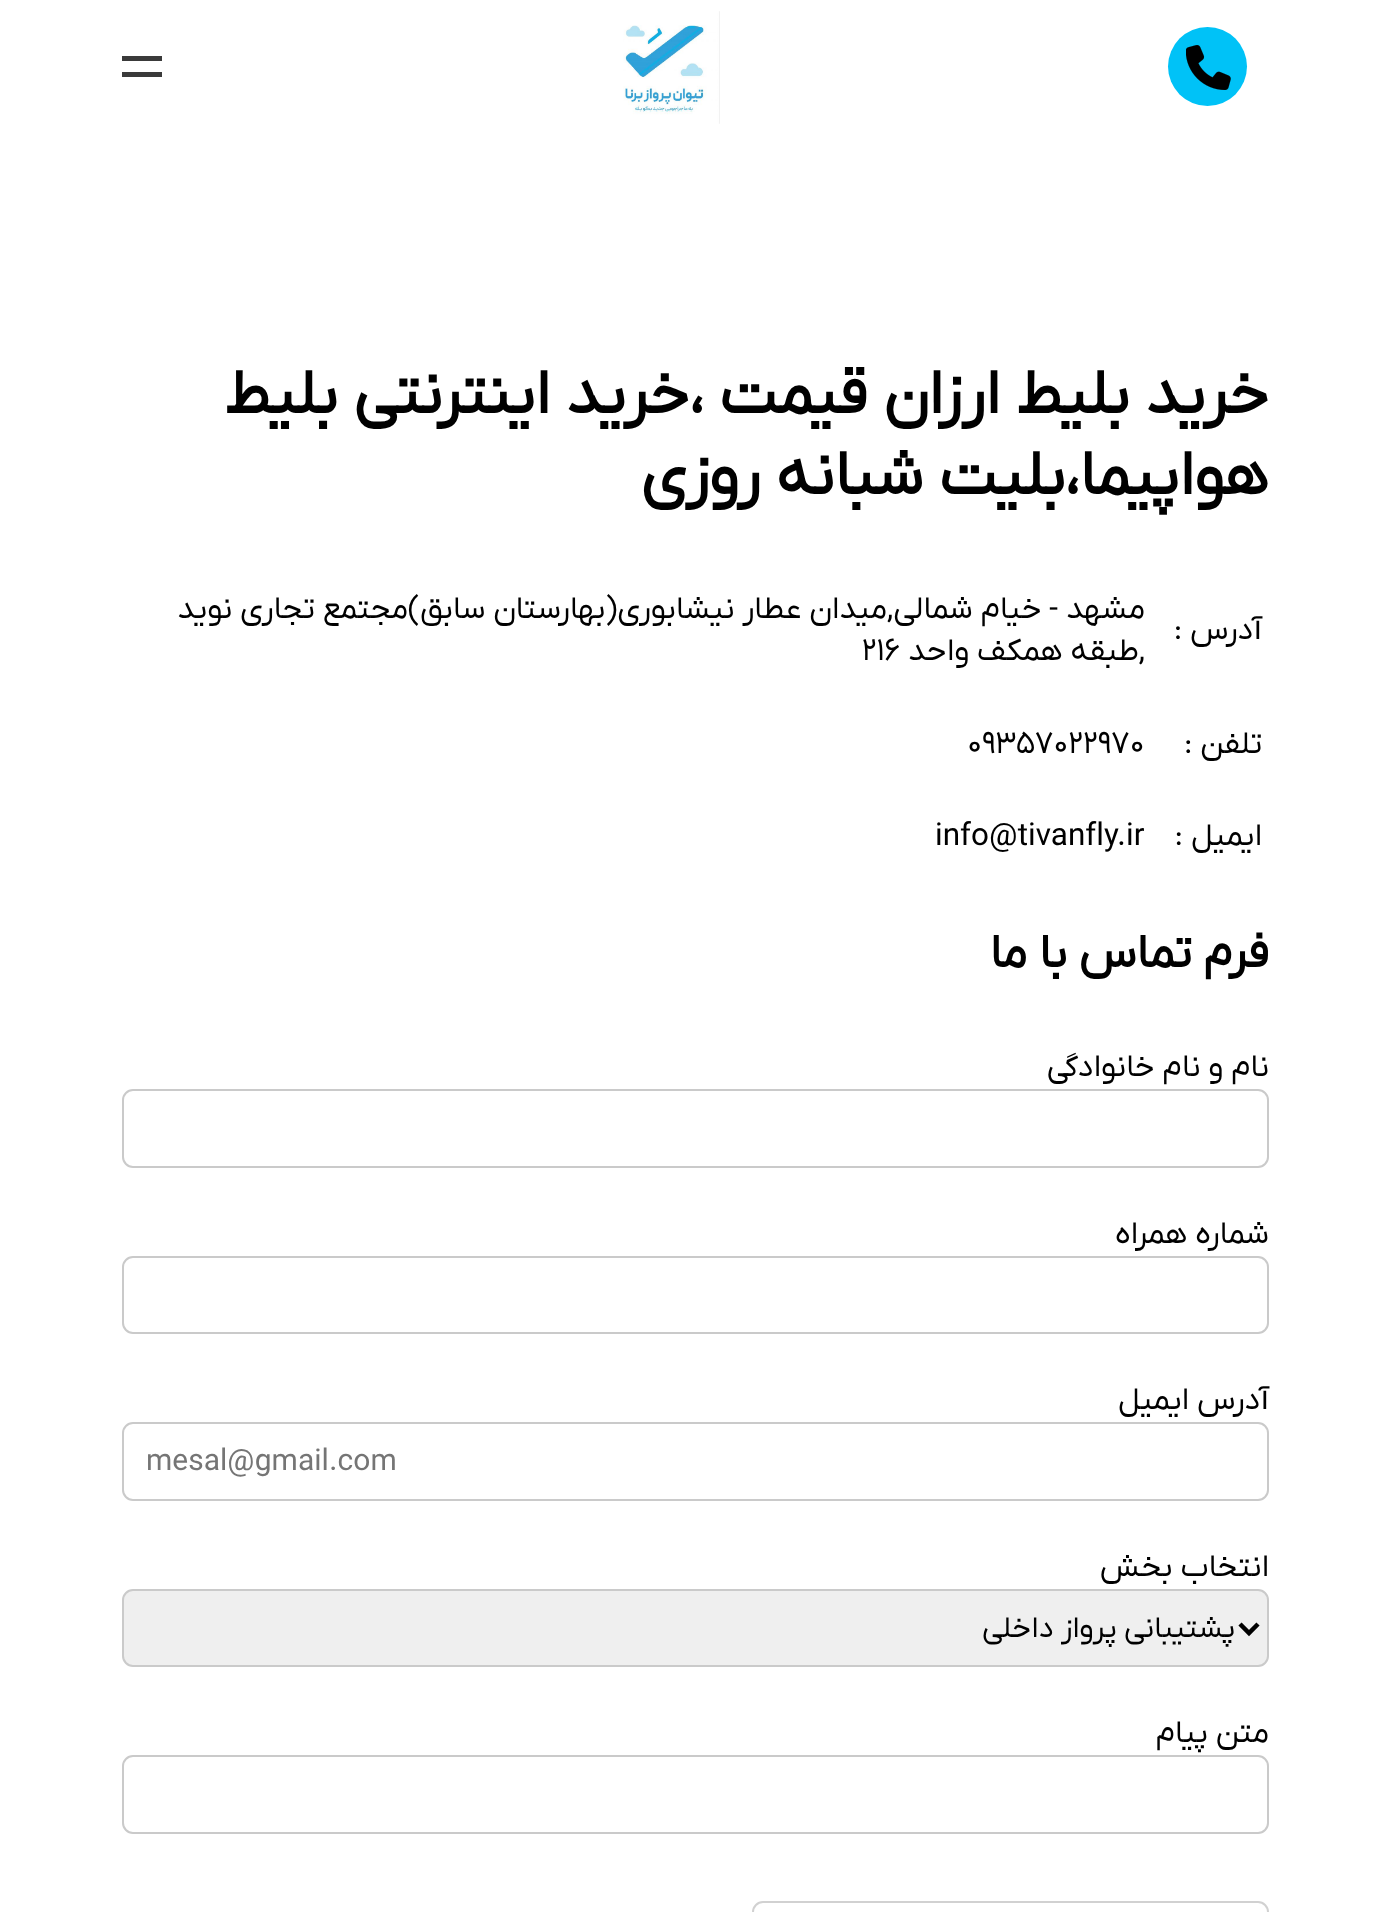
<!DOCTYPE html>
<meta charset="utf-8">
<style>body { margin: 0 } canvas { display: block }</style>
<canvas id="canvas" width="1390" height="1912"></canvas>
<img id="img1" src="img_01.png" hidden>
<img id="img2" src="img_02.png" hidden>
<script>
window.onload = function () {
	const canvas = document.getElementById("canvas");
	const ctx = canvas.getContext("2d");
	ctx.miterLimit = 4;
	ctx.fontKerning = "normal";
	function txt(s, x, y) {
		ctx.fillText(s, x, y);
	}
	function fill(x, y, w, h) {
		ctx.fillRect(x, y, w, h);
	}
	function img(id, x, y, w, h) {
		ctx.drawImage(document.getElementById(id), x, y, w, h);
	}

	ctx.fillStyle = "#FFFFFF";
	fill(0, 0, 1390, 1912);
	ctx.fillStyle = "#00C2F7";
	ctx.beginPath();
	ctx.arc(1207.5, 66.5, 39.5, 0, Math.PI * 2);
	ctx.fill();
	img("img1", 1186, 45, 45, 45);
	img("img2", 623, 11, 97, 113);
	ctx.fillStyle = "#3A3A3A";
	fill(122, 56, 40, 5);
	fill(122, 72, 40, 5);
	ctx.beginPath();
	ctx.roundRect(123, 1090, 1145, 77, 10);
	ctx.strokeStyle = "#CACACA";
	ctx.lineWidth = 2;
	ctx.stroke();
	ctx.beginPath();
	ctx.roundRect(123, 1257, 1145, 76, 10);
	ctx.stroke();
	ctx.beginPath();
	ctx.roundRect(123, 1423, 1145, 77, 10);
	ctx.stroke();
	ctx.fillStyle = "#EFEFEF";
	ctx.beginPath();
	ctx.roundRect(123, 1590, 1145, 76, 10);
	ctx.fill();
	ctx.stroke();
	ctx.beginPath();
	ctx.moveTo(1240, 1624);
	ctx.lineTo(1249, 1633);
	ctx.lineTo(1258, 1624);
	ctx.strokeStyle = "#000000";
	ctx.lineWidth = 4.5;
	ctx.stroke();
	ctx.beginPath();
	ctx.roundRect(123, 1756, 1145, 77, 10);
	ctx.strokeStyle = "#CACACA";
	ctx.lineWidth = 2;
	ctx.stroke();
	ctx.beginPath();
	ctx.roundRect(753, 1902, 515, 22, 10);
	ctx.strokeStyle = "#D1D1D1";
	ctx.stroke();
	ctx.direction = "rtl";
	ctx.font = "bold 63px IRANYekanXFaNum";
	ctx.fillStyle = "#000000";
	txt("خرید بلیط", 1269, 413);
	txt("ارزان قیمت ،خرید اینترنتی بلیط", 1000, 413);
	txt("هواپیما،بلیت شبانه روزی", 1269, 494);
	ctx.font = "31.5px IRANYekanXFaNum";
	txt("آدرس :", 1262, 639);
	txt("مشهد - خیام شمالی,میدان عطار نیشابوری(بهارستان سابق)مجتمع تجاری نوید", 1145, 618);
	txt(",طبقه همکف واحد", 1145, 660);
	ctx.direction = "ltr";
	txt("216", 862, 660);
	ctx.direction = "rtl";
	txt("تلفن :", 1262, 753);
	ctx.direction = "ltr";
	txt("09357022970", 967, 753);
	ctx.direction = "rtl";
	txt("ایمیل :", 1262, 845);
	ctx.direction = "ltr";
	txt("info@tivanfly.ir", 935, 845);
	ctx.direction = "rtl";
	ctx.font = "bold 47.25px IRANYekanXFaNum";
	txt("فرم تماس با ما", 1269, 967);
	ctx.font = "31.5px IRANYekanXFaNum";
	txt("نام و نام خانوادگی", 1269, 1076);
	txt("شماره همراه", 1269, 1243);
	txt("آدرس ایمیل", 1269, 1409);
	ctx.direction = "ltr";
	ctx.font = "30px IRANYekanXFaNum";
	ctx.fillStyle = "#757575";
	txt("mesal@gmail.com", 146, 1470);
	ctx.direction = "rtl";
	ctx.font = "31.5px IRANYekanXFaNum";
	ctx.fillStyle = "#000000";
	txt("انتخاب بخش", 1269, 1576);
	ctx.font = "30px IRANYekanXFaNum";
	txt("پشتیبانی پرواز داخلی", 1235, 1637);
	ctx.font = "31.5px IRANYekanXFaNum";
	txt("متن پیام", 1269, 1742);
};
</script>
